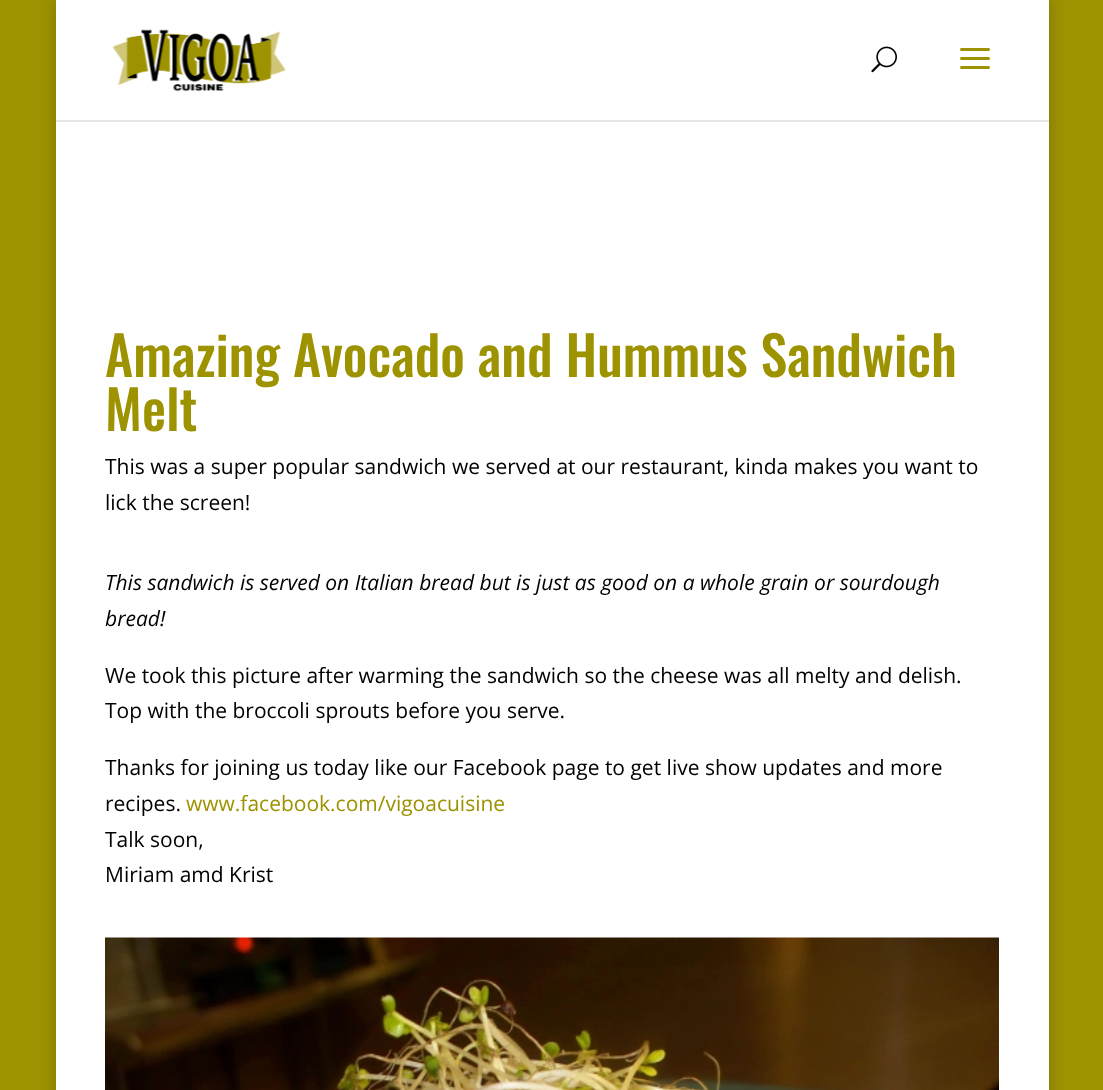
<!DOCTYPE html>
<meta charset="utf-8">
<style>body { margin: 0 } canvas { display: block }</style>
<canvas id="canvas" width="1103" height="1090"></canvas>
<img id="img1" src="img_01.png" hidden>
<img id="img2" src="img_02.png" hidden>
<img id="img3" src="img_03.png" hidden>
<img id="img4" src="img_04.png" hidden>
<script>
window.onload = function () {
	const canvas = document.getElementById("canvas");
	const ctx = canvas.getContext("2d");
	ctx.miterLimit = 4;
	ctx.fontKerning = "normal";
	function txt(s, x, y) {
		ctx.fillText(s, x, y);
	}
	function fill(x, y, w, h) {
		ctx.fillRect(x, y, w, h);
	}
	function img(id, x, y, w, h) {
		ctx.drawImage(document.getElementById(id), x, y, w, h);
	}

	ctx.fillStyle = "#9D9200";
	fill(0, 0, 1103, 1090);
	ctx.fillStyle = "rgba(0, 0, 0, 0.2)";
	ctx.filter = "blur(7.5px)";
	ctx.beginPath();
	ctx.rect(56, 0, 993, 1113);
	ctx.fill();
	ctx.filter = "none";
	ctx.fillStyle = "#FFFFFF";
	fill(56, 120, 993, 970);
	ctx.fillStyle = "rgba(0, 0, 0, 0.1)";
	ctx.beginPath();
	ctx.moveTo(56, 120);
	ctx.lineTo(56, 122);
	ctx.lineTo(1049, 122);
	ctx.lineTo(1049, 2);
	ctx.lineTo(1048, 2);
	ctx.lineTo(1048, 120);
	ctx.closePath();
	ctx.fill();
	ctx.fillStyle = "#FFFFFF";
	fill(56, 0, 993, 120);
	img("img1", 112, 29, 174, 63);
	img("img2", 871, 46, 26, 27);
	img("img3", 960, 48, 30, 21);
	img("img4", 105, 937, 894, 153);
	ctx.font = "500 54px Oswald";
	ctx.fillStyle = "#9D9200";
	txt("Amazing Avocado and Hummus Sandwich", 105, 377);
	txt("Melt", 105, 431);
	ctx.font = "21px Open Sans";
	ctx.fillStyle = "#000000";
	txt("This was a super popular sandwich we served at our restaurant, kinda makes you want to", 105, 474);
	txt("lick the screen!", 105, 510);
	ctx.font = "italic 21px Open Sans";
	txt("This sandwich is served on Italian bread but is just as good on a whole grain or sourdough", 105, 590);
	txt("bread!", 105, 626);
	ctx.font = "21px Open Sans";
	txt("We took this picture after warming the sandwich so the cheese was all melty and delish.", 105, 683);
	txt("Top with the broccoli sprouts before you serve.", 105, 718);
	txt("Thanks for joining us today like our Facebook page to get live show updates and more", 105, 775);
	txt("recipes.", 105, 811);
	ctx.fillStyle = "#9D9200";
	txt("www.facebook.com/vigoacuisine", 186, 811);
	ctx.fillStyle = "#000000";
	txt("Talk soon,", 105, 847);
	txt("Miriam amd Krist", 105, 882);
};
</script>
